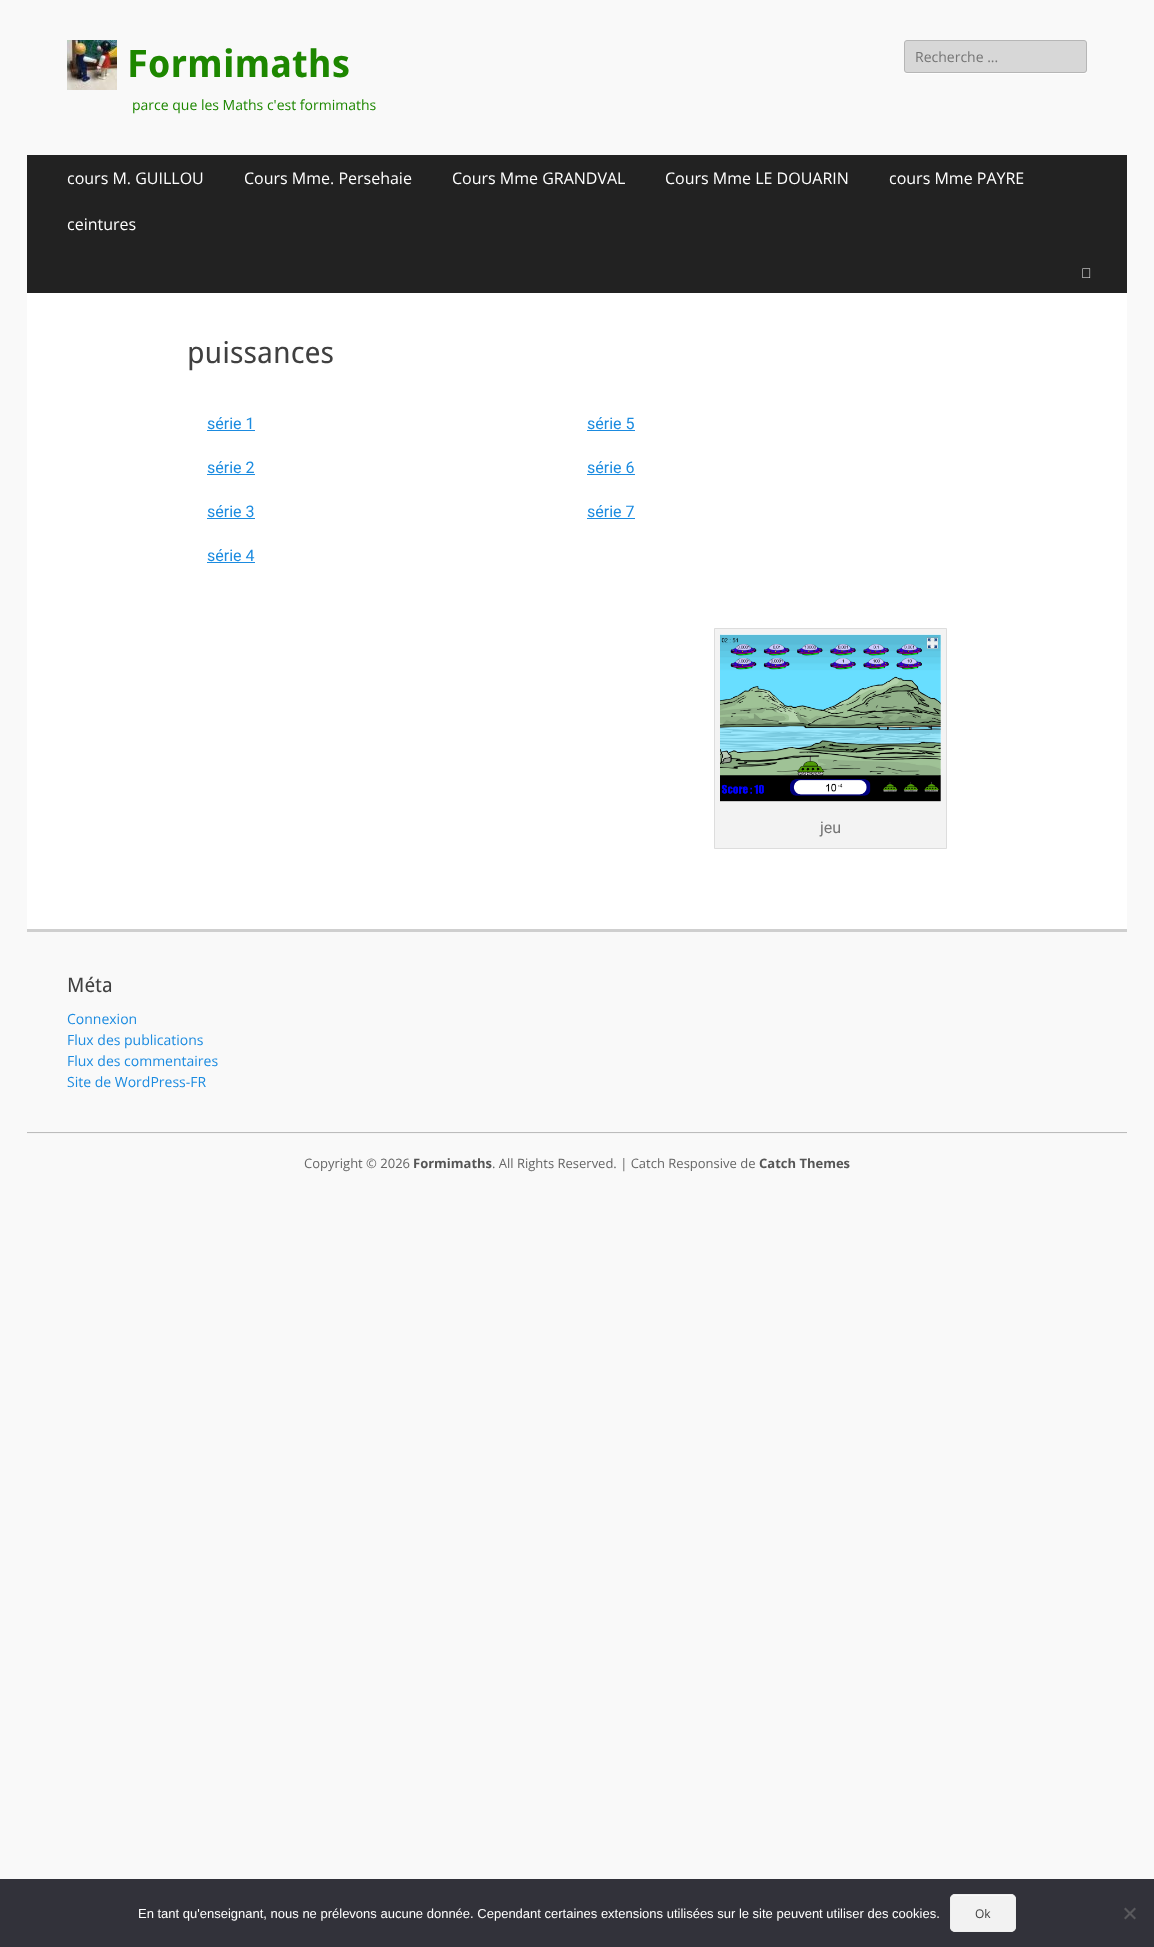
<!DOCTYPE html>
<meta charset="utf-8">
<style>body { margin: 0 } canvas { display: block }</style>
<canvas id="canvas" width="1154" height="1947"></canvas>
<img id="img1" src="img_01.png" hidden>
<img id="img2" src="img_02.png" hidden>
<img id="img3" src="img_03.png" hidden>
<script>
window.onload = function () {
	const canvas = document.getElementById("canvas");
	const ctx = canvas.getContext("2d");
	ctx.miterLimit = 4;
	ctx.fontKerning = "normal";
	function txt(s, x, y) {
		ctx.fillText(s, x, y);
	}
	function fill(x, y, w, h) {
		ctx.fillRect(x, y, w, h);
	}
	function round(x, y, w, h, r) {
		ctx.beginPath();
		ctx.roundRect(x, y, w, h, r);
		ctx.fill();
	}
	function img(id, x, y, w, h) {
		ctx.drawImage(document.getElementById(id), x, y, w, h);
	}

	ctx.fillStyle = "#F9F9F9";
	fill(0, 0, 1154, 1947);
	img("img1", 67, 40, 50, 50);
	ctx.fillStyle = "#FFFFFF";
	ctx.beginPath();
	ctx.moveTo(904, 70);
	ctx.bezierCurveTo(904, 72, 905, 74, 907, 74);
	ctx.lineTo(1085, 74);
	ctx.bezierCurveTo(1087, 73, 1087, 72, 1087, 70);
	ctx.bezierCurveTo(1087, 72, 1086, 73, 1084, 73);
	ctx.lineTo(907, 73);
	ctx.bezierCurveTo(905, 73, 904, 72, 904, 70);
	ctx.closePath();
	ctx.fill();
	ctx.fillStyle = "#D7D7D7";
	ctx.beginPath();
	ctx.roundRect(904.5, 40.5, 182, 32, 2.5);
	ctx.fill();
	ctx.strokeStyle = "#B6B6B6";
	ctx.stroke();
	ctx.fillStyle = "#222222";
	fill(27, 155, 1100, 138);
	img("img2", 1082, 268, 9, 10);
	ctx.fillStyle = "#FFFFFF";
	fill(27, 293, 1100, 636);
	ctx.fillStyle = "#1B8BE0";
	fill(207, 430, 48, 1);
	fill(207, 474, 48, 1);
	fill(207, 518, 48, 1);
	fill(207, 562, 48, 1);
	fill(587, 430, 48, 1);
	fill(587, 474, 48, 1);
	fill(587, 518, 48, 1);
	ctx.fillStyle = "#F3F3F3";
	ctx.beginPath();
	ctx.rect(714.5, 628.5, 232, 220);
	ctx.fill();
	ctx.strokeStyle = "#DDDDDD";
	ctx.stroke();
	img("img3", 720, 634, 221, 168);
	ctx.fillStyle = "#CFCFCF";
	fill(27, 929, 1100, 3);
	ctx.fillStyle = "#BCBCBC";
	fill(27, 1132, 1100, 1);
	ctx.fillStyle = "#F4F4F4";
	fill(27, 1133, 1100, 1);
	ctx.fillStyle = "#32323A";
	fill(0, 1879, 1154, 68);
	ctx.fillStyle = "#F2F2F2";
	round(950, 1894, 66, 38, 5);
	ctx.fillStyle = "#F9F9F9";
	ctx.beginPath();
	ctx.moveTo(955, 1896);
	ctx.lineTo(1011, 1896);
	ctx.bezierCurveTo(1013, 1896, 1015, 1898, 1015, 1900);
	ctx.bezierCurveTo(1015, 1893, 1007, 1895, 1002, 1895);
	ctx.lineTo(964, 1895);
	ctx.bezierCurveTo(959, 1895, 951, 1893, 951, 1900);
	ctx.bezierCurveTo(951, 1898, 953, 1896, 955, 1896);
	ctx.closePath();
	ctx.fill();
	ctx.beginPath();
	ctx.roundRect(950.5, 1894.5, 65, 37, 4.5);
	ctx.strokeStyle = "#EEEEEE";
	ctx.stroke();
	ctx.fillStyle = "#59595D";
	ctx.beginPath();
	ctx.moveTo(1134.5, 1907.5);
	ctx.lineTo(1136, 1909);
	ctx.lineTo(1125.5, 1919.5);
	ctx.lineTo(1124, 1918);
	ctx.closePath();
	ctx.fill();
	ctx.beginPath();
	ctx.moveTo(1124, 1909);
	ctx.lineTo(1125.5, 1907.5);
	ctx.lineTo(1136, 1918);
	ctx.lineTo(1134.5, 1919.5);
	ctx.closePath();
	ctx.fill();
	ctx.font = "bold 38px Droid Sans";
	ctx.fillStyle = "#1D8700";
	txt("Formimaths", 127, 77);
	ctx.font = "14px Open Sans";
	txt("parce que les Maths c'est formimaths", 132, 110);
	ctx.fillStyle = "#757575";
	txt("Recherche ...", 915, 62);
	ctx.font = "16px Open Sans";
	ctx.fillStyle = "#FFFFFF";
	txt("cours M. GUILLOU", 67, 184);
	txt("Cours Mme. Persehaie", 244, 184);
	txt("Cours Mme GRANDVAL", 452, 184);
	txt("Cours Mme LE DOUARIN", 665, 184);
	txt("cours Mme PAYRE", 889, 184);
	txt("ceintures", 67, 230);
	ctx.font = "30px Droid Sans";
	ctx.fillStyle = "#404040";
	txt("puissances", 187, 363);
	ctx.font = "16px Roboto";
	ctx.fillStyle = "#1B8BE0";
	txt("série 1", 207, 429);
	txt("série 2", 207, 473);
	txt("série 3", 207, 517);
	txt("série 4", 207, 561);
	txt("série 5", 587, 429);
	txt("série 6", 587, 473);
	txt("série 7", 587, 517);
	ctx.fillStyle = "#757575";
	txt("jeu", 820, 833);
	ctx.font = "20px Droid Sans";
	ctx.fillStyle = "#404040";
	txt("Méta", 67, 992);
	ctx.font = "14px Open Sans";
	ctx.fillStyle = "#1B8BE0";
	txt("Connexion", 67, 1024);
	txt("Flux des publications", 67, 1045);
	txt("Flux des commentaires", 67, 1066);
	txt("Site de WordPress-FR", 67, 1087);
	ctx.font = "13px Open Sans";
	ctx.fillStyle = "#666666";
	txt("Copyright © 2026", 304, 1168);
	ctx.font = "bold 13px Open Sans";
	ctx.fillStyle = "#555555";
	txt("Formimaths", 413, 1168);
	ctx.font = "13px Open Sans";
	ctx.fillStyle = "#666666";
	txt(". All Rights Reserved. | Catch Responsive de", 492, 1168);
	ctx.font = "bold 13px Open Sans";
	ctx.fillStyle = "#555555";
	txt("Catch Themes", 759, 1168);
	ctx.font = "13px Liberation Sans";
	ctx.fillStyle = "#FFFFFF";
	txt("En tant qu'enseignant, nous ne prélevons aucune donnée. Cependant certaines extensions utilisées sur le site peuvent utiliser des cookies.", 138, 1918);
	ctx.font = "12px Open Sans";
	ctx.fillStyle = "#404040";
	txt("Ok", 975, 1918);
};
</script>
